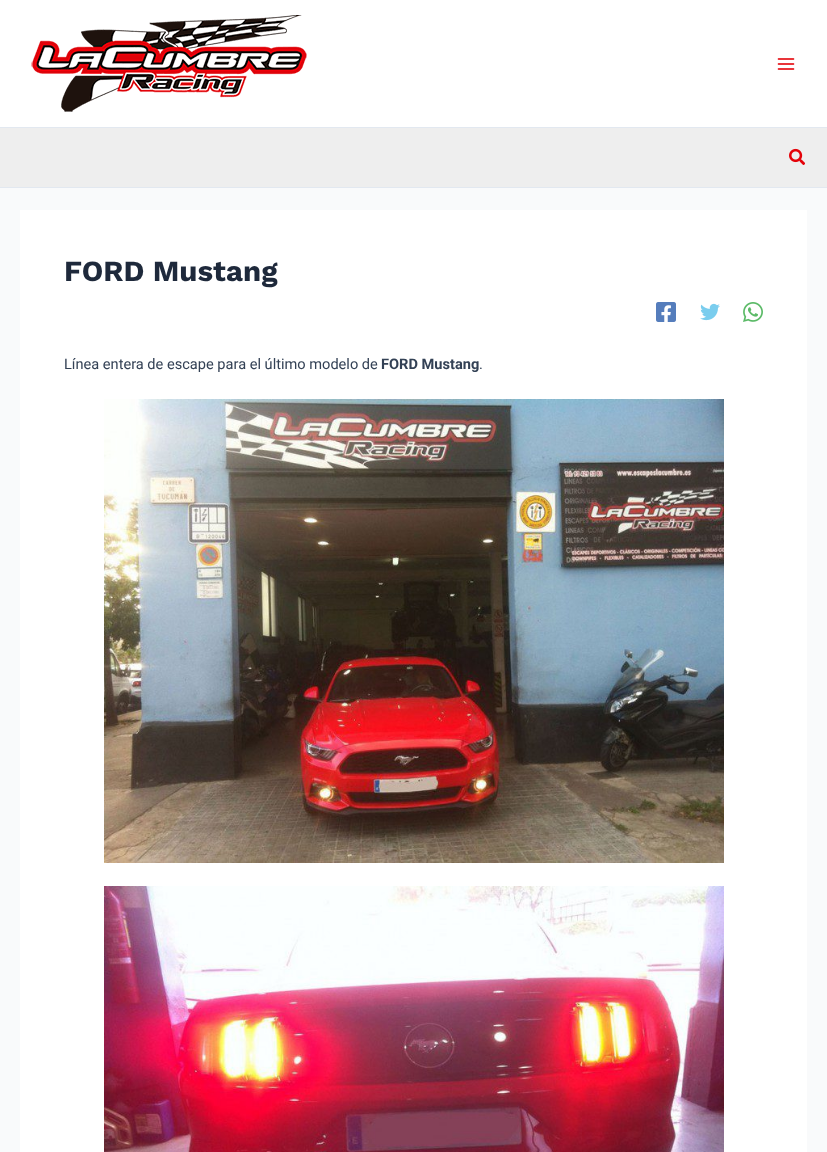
<!DOCTYPE html>
<meta charset="utf-8">
<style>body { margin: 0 } canvas { display: block }</style>
<canvas id="canvas" width="827" height="1152"></canvas>
<img id="img1" src="img_01.png" hidden>
<img id="img2" src="img_02.png" hidden>
<img id="img3" src="img_03.png" hidden>
<img id="img4" src="img_04.png" hidden>
<img id="img5" src="img_05.png" hidden>
<img id="img6" src="img_06.png" hidden>
<img id="img7" src="img_07.png" hidden>
<img id="img8" src="img_08.png" hidden>
<script>
window.onload = function () {
	const canvas = document.getElementById("canvas");
	const ctx = canvas.getContext("2d");
	ctx.miterLimit = 4;
	ctx.fontKerning = "normal";
	function txt(s, x, y) {
		ctx.fillText(s, x, y);
	}
	function fill(x, y, w, h) {
		ctx.fillRect(x, y, w, h);
	}
	function img(id, x, y, w, h) {
		ctx.drawImage(document.getElementById(id), x, y, w, h);
	}

	ctx.fillStyle = "#F9FAFB";
	fill(0, 0, 827, 1152);
	ctx.fillStyle = "#FFFFFF";
	fill(0, 0, 827, 127);
	ctx.fillStyle = "#E2E8F0";
	fill(0, 127, 827, 1);
	img("img1", 31, 15, 276, 97);
	img("img2", 777, 58, 18, 12);
	ctx.fillStyle = "#EEEEEE";
	fill(0, 128, 827, 59);
	ctx.fillStyle = "#E2E8F0";
	fill(0, 187, 827, 1);
	img("img3", 789, 148, 16, 17);
	ctx.fillStyle = "#FFFFFF";
	fill(20, 210, 787, 942);
	img("img4", 656, 302, 20, 20);
	img("img5", 700, 303, 20, 18);
	img("img6", 743, 302, 20, 20);
	img("img7", 104, 399, 620, 464);
	img("img8", 104, 886, 620, 266);
	ctx.font = "bold 29.25px Work Sans";
	ctx.fillStyle = "#1E293B";
	txt("FORD Mustang", 64, 281);
	ctx.font = "14.6px Roboto";
	ctx.fillStyle = "#334155";
	txt("Línea entera de escape para el último modelo de", 64, 369);
	ctx.font = "bold 14.6px Roboto";
	txt("FORD Mustang", 381, 369);
	ctx.font = "14.6px Roboto";
	txt(".", 479, 369);
};
</script>
